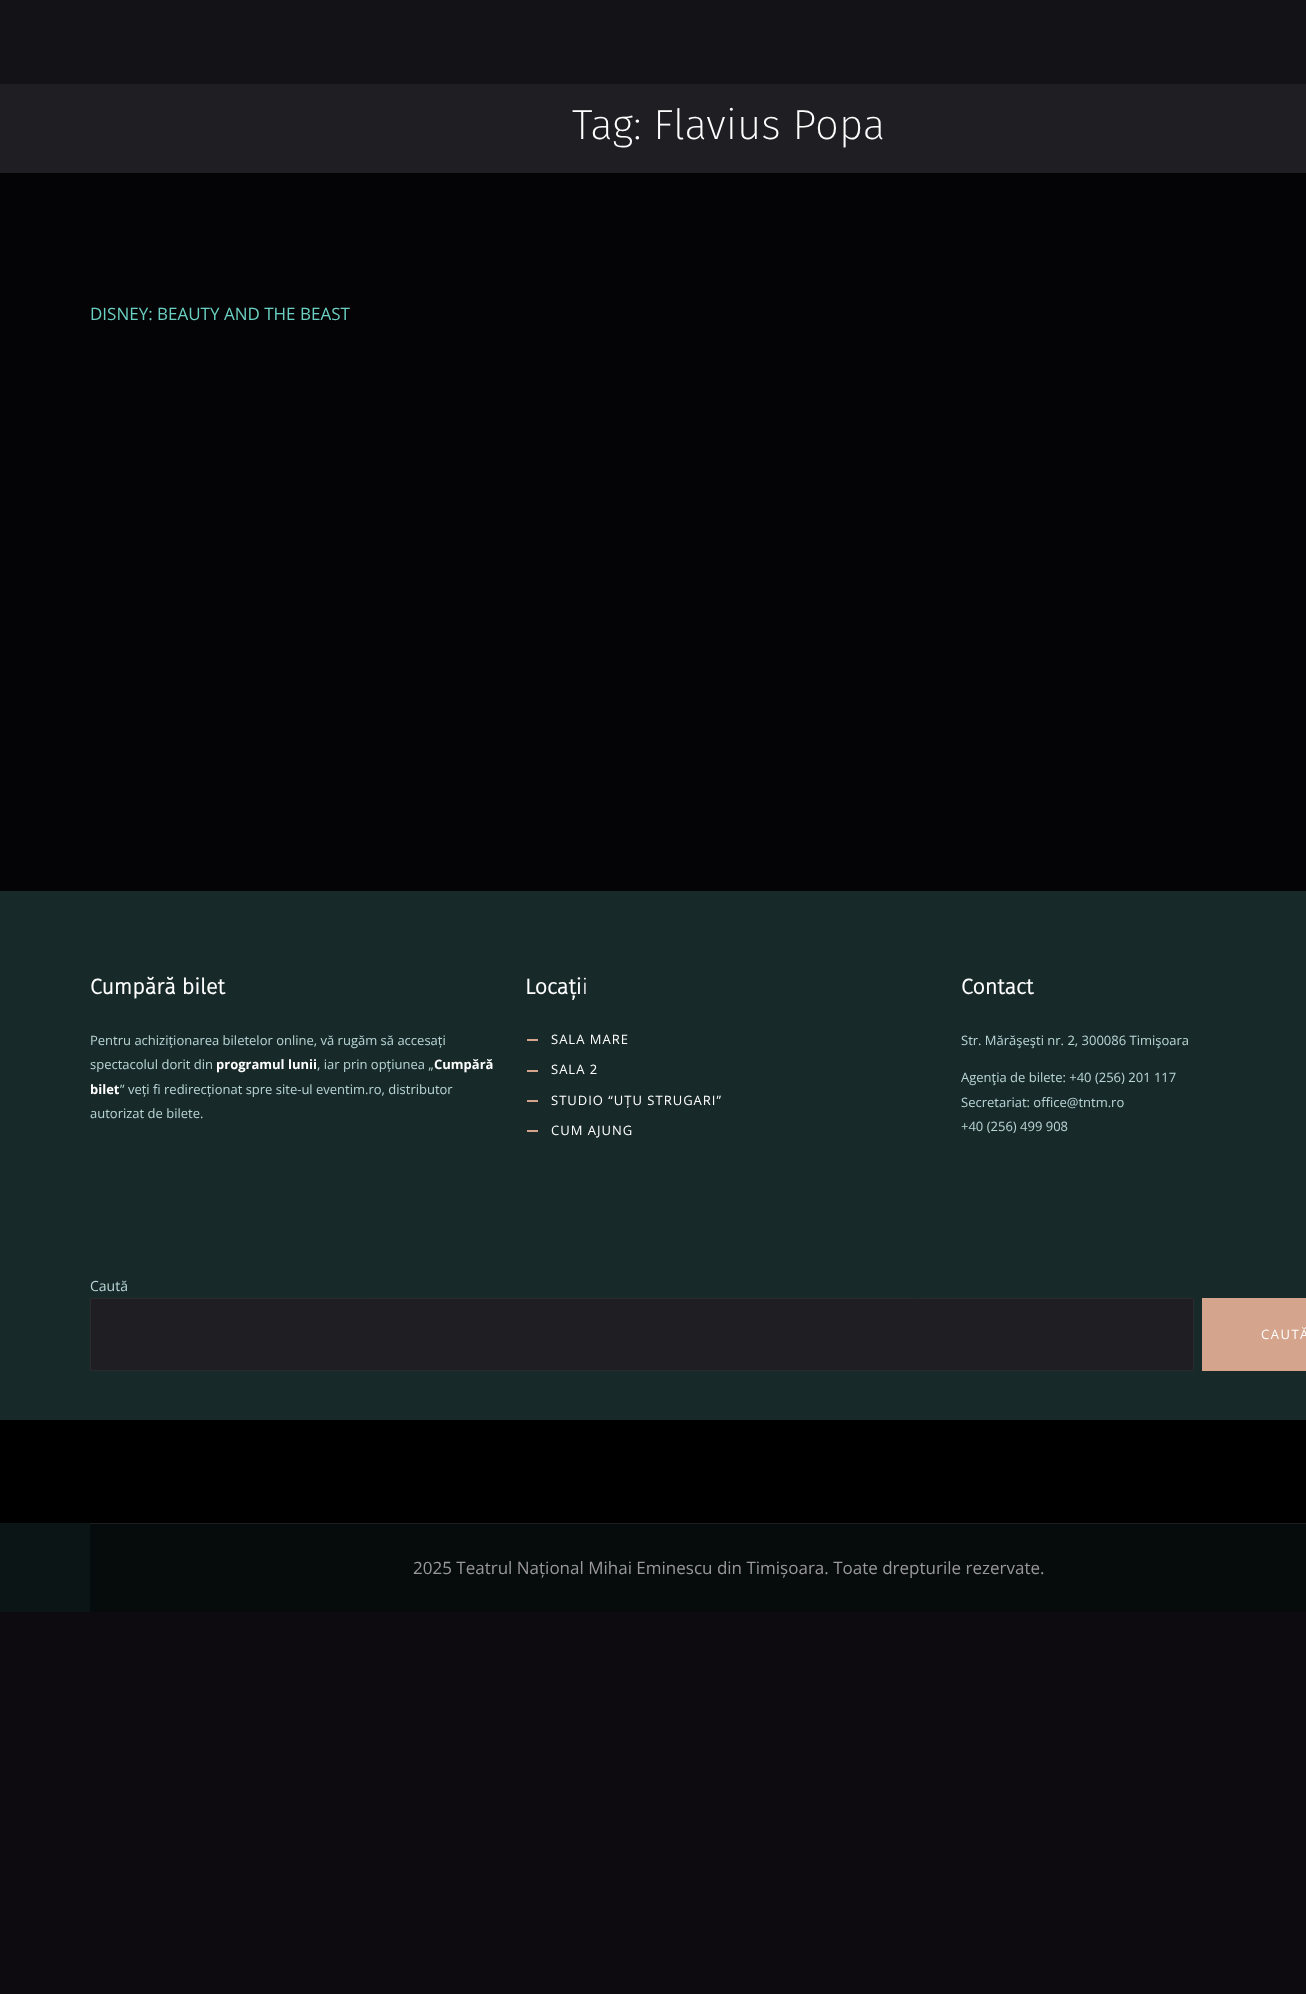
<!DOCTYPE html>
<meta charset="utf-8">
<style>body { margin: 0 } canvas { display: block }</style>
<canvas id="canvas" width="1306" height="1994"></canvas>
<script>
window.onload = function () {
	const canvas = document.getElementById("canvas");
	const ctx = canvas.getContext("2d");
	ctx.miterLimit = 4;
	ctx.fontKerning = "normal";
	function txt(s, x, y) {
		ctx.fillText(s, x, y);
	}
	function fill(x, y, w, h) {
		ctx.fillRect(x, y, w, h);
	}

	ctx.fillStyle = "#0D0B0F";
	fill(0, 0, 1306, 1994);
	ctx.fillStyle = "#131217";
	fill(0, 0, 1306, 84);
	ctx.fillStyle = "#1F1E23";
	fill(0, 84, 1306, 89);
	ctx.fillStyle = "#040305";
	fill(0, 173, 1306, 718);
	ctx.fillStyle = "#18292A";
	fill(0, 891, 1306, 529);
	ctx.fillStyle = "#D4A48C";
	fill(527, 1039, 11, 2);
	fill(527, 1070, 11, 2);
	fill(527, 1100, 11, 2);
	fill(527, 1130, 11, 2);
	ctx.fillStyle = "#1F1E23";
	ctx.beginPath();
	ctx.rect(90.5, 1298.5, 1103, 72);
	ctx.fill();
	ctx.strokeStyle = "#2B2A2F";
	ctx.stroke();
	ctx.fillStyle = "#D4A48C";
	fill(1202, 1298, 104, 73);
	ctx.fillStyle = "#000000";
	fill(0, 1420, 1306, 103);
	ctx.fillStyle = "#0C1515";
	fill(0, 1523, 90, 89);
	ctx.fillStyle = "#060B0B";
	fill(90, 1524, 1216, 88);
	ctx.fillStyle = "#1F1E23";
	fill(90, 1523, 1216, 1);
	ctx.font = "200 42px Fira Sans";
	ctx.fillStyle = "#FFFFFF";
	txt("Tag: Flavius Popa", 572, 139);
	ctx.font = "17px Open Sans";
	ctx.fillStyle = "#6AD0C3";
	txt("DISNEY: BEAUTY AND THE BEAST", 90, 320);
	ctx.font = "bold 21.5px Fira Sans";
	ctx.fillStyle = "#FFFFFF";
	txt("Cumpără bilet", 90, 994);
	ctx.font = "13px Open Sans";
	ctx.fillStyle = "#B9D6D6";
	txt("Pentru achiziționarea biletelor online, vă rugăm să accesați", 90, 1045);
	txt("spectacolul dorit din", 90, 1069);
	ctx.font = "bold 13px Open Sans";
	ctx.fillStyle = "#FFFFFF";
	txt("programul lunii", 216, 1069);
	ctx.font = "13px Open Sans";
	ctx.fillStyle = "#B9D6D6";
	txt(", iar prin opțiunea „", 317, 1069);
	ctx.font = "bold 13px Open Sans";
	ctx.fillStyle = "#FFFFFF";
	txt("Cumpără", 434, 1069);
	txt("bilet", 90, 1094);
	ctx.font = "13px Open Sans";
	ctx.fillStyle = "#B9D6D6";
	txt("” veți fi redirecționat spre site-ul eventim.ro, distributor", 120, 1094);
	txt("autorizat de bilete.", 90, 1118);
	ctx.font = "bold 21.5px Fira Sans";
	ctx.fillStyle = "#FFFFFF";
	txt("Locați", 525, 994);
	ctx.font = "300 21.5px Fira Sans";
	txt("i", 582, 994);
	ctx.letterSpacing = "1px";
	ctx.font = "13px Open Sans";
	txt("SALA MARE", 551, 1044);
	txt("SALA 2", 551, 1074);
	txt("STUDIO “UȚU STRUGARI”", 551, 1105);
	txt("CUM AJUNG", 551, 1135);
	ctx.letterSpacing = "0px";
	ctx.font = "bold 21.5px Fira Sans";
	txt("Contact", 961, 994);
	ctx.font = "13px Open Sans";
	ctx.fillStyle = "#B9D6D6";
	txt("Str. Mărăşeşti nr. 2, 300086 Timişoara", 961, 1045);
	txt("Agenţia de bilete: +40 (256) 201 117", 961, 1082);
	txt("Secretariat: office@tntm.ro", 961, 1107);
	txt("+40 (256) 499 908", 961, 1131);
	ctx.font = "14px Open Sans";
	txt("Caută", 90, 1291);
	ctx.letterSpacing = "1.5px";
	ctx.font = "13px Open Sans";
	ctx.fillStyle = "#FFFFFF";
	txt("CAUTĂ", 1261, 1339);
	ctx.letterSpacing = "0px";
	ctx.font = "17px Open Sans";
	ctx.fillStyle = "#99989A";
	txt("2025 Teatrul Național Mihai Eminescu din Timișoara. Toate drepturile rezervate.", 413, 1574);
};
</script>
